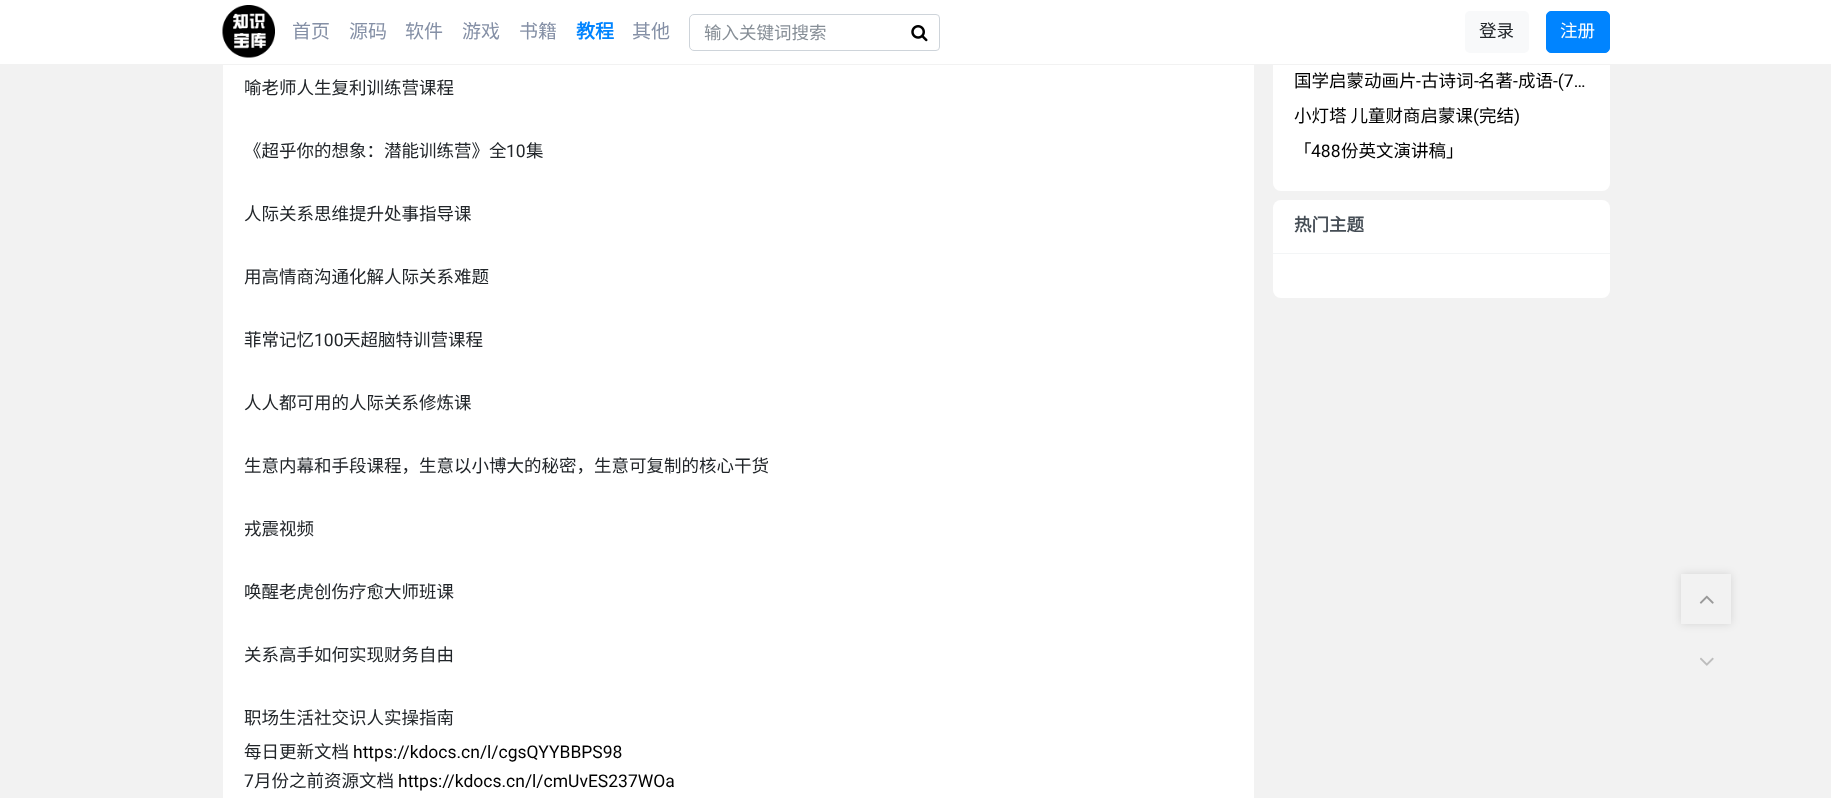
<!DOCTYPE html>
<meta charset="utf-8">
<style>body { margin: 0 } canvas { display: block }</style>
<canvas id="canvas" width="1831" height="798"></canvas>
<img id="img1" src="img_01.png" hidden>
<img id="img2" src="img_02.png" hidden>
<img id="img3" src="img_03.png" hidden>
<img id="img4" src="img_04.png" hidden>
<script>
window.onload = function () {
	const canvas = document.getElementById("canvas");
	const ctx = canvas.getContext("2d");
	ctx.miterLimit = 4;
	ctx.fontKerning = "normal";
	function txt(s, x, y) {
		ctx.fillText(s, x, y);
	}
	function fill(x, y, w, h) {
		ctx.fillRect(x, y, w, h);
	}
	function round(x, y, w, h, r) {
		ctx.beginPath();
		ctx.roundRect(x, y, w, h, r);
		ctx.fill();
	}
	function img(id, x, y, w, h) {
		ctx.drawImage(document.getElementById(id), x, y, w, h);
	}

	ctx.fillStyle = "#F2F2F2";
	fill(0, 0, 1831, 798);
	ctx.fillStyle = "#FFFFFF";
	round(1273, -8, 337, 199, 8);
	fill(0, 0, 1831, 64);
	ctx.fillStyle = "#F2F2F2";
	fill(1273, 64, 337, 1);
	img("img1", 222, 5, 53, 53);
	ctx.beginPath();
	ctx.roundRect(689.5, 14.5, 250, 36, [4.5, 3.5, 3.5, 4.5]);
	ctx.strokeStyle = "#CED4DA";
	ctx.stroke();
	img("img2", 911, 25, 17, 17);
	ctx.fillStyle = "#F8F9FA";
	round(1465, 11, 64, 42, 5);
	ctx.fillStyle = "#0084FF";
	ctx.beginPath();
	ctx.roundRect(1546.5, 11.5, 63, 41, 4.5);
	ctx.fill();
	ctx.strokeStyle = "#0084FF";
	ctx.stroke();
	ctx.fillStyle = "#FFFFFF";
	fill(223, 65, 1031, 733);
	round(1273, 200, 337, 98, 8);
	ctx.fillStyle = "#F3F5F6";
	fill(1273, 253, 337, 1);
	ctx.save();
	ctx.beginPath();
	ctx.moveTo(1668, 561);
	ctx.lineTo(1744, 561);
	ctx.lineTo(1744, 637);
	ctx.lineTo(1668, 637);
	ctx.closePath();
	ctx.moveTo(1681, 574);
	ctx.lineTo(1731, 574);
	ctx.lineTo(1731, 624);
	ctx.lineTo(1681, 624);
	ctx.closePath();
	ctx.clip("evenodd");
	ctx.fillStyle = "rgba(0, 0, 0, 0.12)";
	ctx.filter = "blur(4px)";
	ctx.beginPath();
	ctx.rect(1681, 574, 50, 50);
	ctx.fill();
	ctx.filter = "none";
	ctx.restore();
	img("img3", 1699, 595, 15, 9);
	img("img4", 1700, 657, 14, 9);
	ctx.font = "19px Noto Sans CJK SC";
	ctx.fillStyle = "#8590A6";
	txt("首页", 292, 38);
	txt("源码", 349, 38);
	txt("软件", 405, 38);
	txt("游戏", 462, 38);
	txt("书籍", 519, 38);
	ctx.font = "bold 19px Noto Sans CJK SC";
	ctx.fillStyle = "#0084FF";
	txt("教程", 576, 38);
	ctx.font = "19px Noto Sans CJK SC";
	ctx.fillStyle = "#8590A6";
	txt("其他", 632, 38);
	ctx.font = "17.5px Noto Sans CJK SC";
	ctx.fillStyle = "#868E96";
	txt("输入关键词搜索", 704, 39);
	ctx.fillStyle = "#212529";
	txt("登录", 1479, 37);
	ctx.fillStyle = "#FFFFFF";
	txt("注册", 1560, 37);
	ctx.fillStyle = "#212529";
	txt("喻老师人生复利训练营课程", 244, 94);
	txt("《超乎你的想象：潜能训练营》全", 244, 157);
	ctx.font = "17.5px Roboto";
	txt("10", 506, 157);
	ctx.font = "17.5px Noto Sans CJK SC";
	txt("集", 526, 157);
	txt("人际关系思维提升处事指导课", 244, 220);
	txt("用高情商沟通化解人际关系难题", 244, 283);
	txt("菲常记忆", 244, 346);
	ctx.font = "17.5px Roboto";
	txt("100", 314, 346);
	ctx.font = "17.5px Noto Sans CJK SC";
	txt("天超脑特训营课程", 343, 346);
	txt("人人都可用的人际关系修炼课", 244, 409);
	txt("生意内幕和手段课程，生意以小博大的秘密，生意可复制的核心干货", 244, 472);
	txt("戎震视频", 244, 535);
	txt("唤醒老虎创伤疗愈大师班课", 244, 598);
	txt("关系高手如何实现财务自由", 244, 661);
	txt("职场生活社交识人实操指南", 244, 724);
	txt("每日更新文档", 244, 758);
	ctx.font = "17.5px Roboto";
	ctx.fillStyle = "#000000";
	txt("https://kdocs.cn/l/cgsQYYBBPS98", 353, 758);
	ctx.fillStyle = "#212529";
	txt("7", 244, 787);
	ctx.font = "17.5px Noto Sans CJK SC";
	txt("月份之前资源文档", 254, 787);
	ctx.font = "17.5px Roboto";
	ctx.fillStyle = "#000000";
	txt("https://kdocs.cn/l/cmUvES237WOa", 398, 787);
	ctx.font = "17.5px Noto Sans CJK SC";
	txt("国学启蒙动画片", 1294, 87);
	ctx.font = "17.5px Roboto";
	txt("-", 1416, 87);
	ctx.font = "17.5px Noto Sans CJK SC";
	txt("古诗词", 1421, 87);
	ctx.font = "17.5px Roboto";
	txt("-", 1474, 87);
	ctx.font = "17.5px Noto Sans CJK SC";
	txt("名著", 1478, 87);
	ctx.font = "17.5px Roboto";
	txt("-", 1513, 87);
	ctx.font = "17.5px Noto Sans CJK SC";
	txt("成语", 1518, 87);
	ctx.font = "17.5px Roboto";
	txt("-(7…", 1553, 87);
	ctx.font = "17.5px Noto Sans CJK SC";
	txt("小灯塔 儿童财商启蒙课", 1294, 122);
	ctx.font = "17.5px Roboto";
	txt("(", 1473, 122);
	ctx.font = "17.5px Noto Sans CJK SC";
	txt("完结", 1479, 122);
	ctx.font = "17.5px Roboto";
	txt(")", 1514, 122);
	ctx.font = "17.5px Noto Sans CJK SC";
	txt("「", 1294, 157);
	ctx.font = "17.5px Roboto";
	txt("488", 1311, 157);
	ctx.font = "17.5px Noto Sans CJK SC";
	txt("份英文演讲稿」", 1341, 157);
	ctx.font = "bold 17.5px Noto Sans CJK SC";
	ctx.fillStyle = "#454D55";
	txt("热门主题", 1294, 231);
};
</script>
